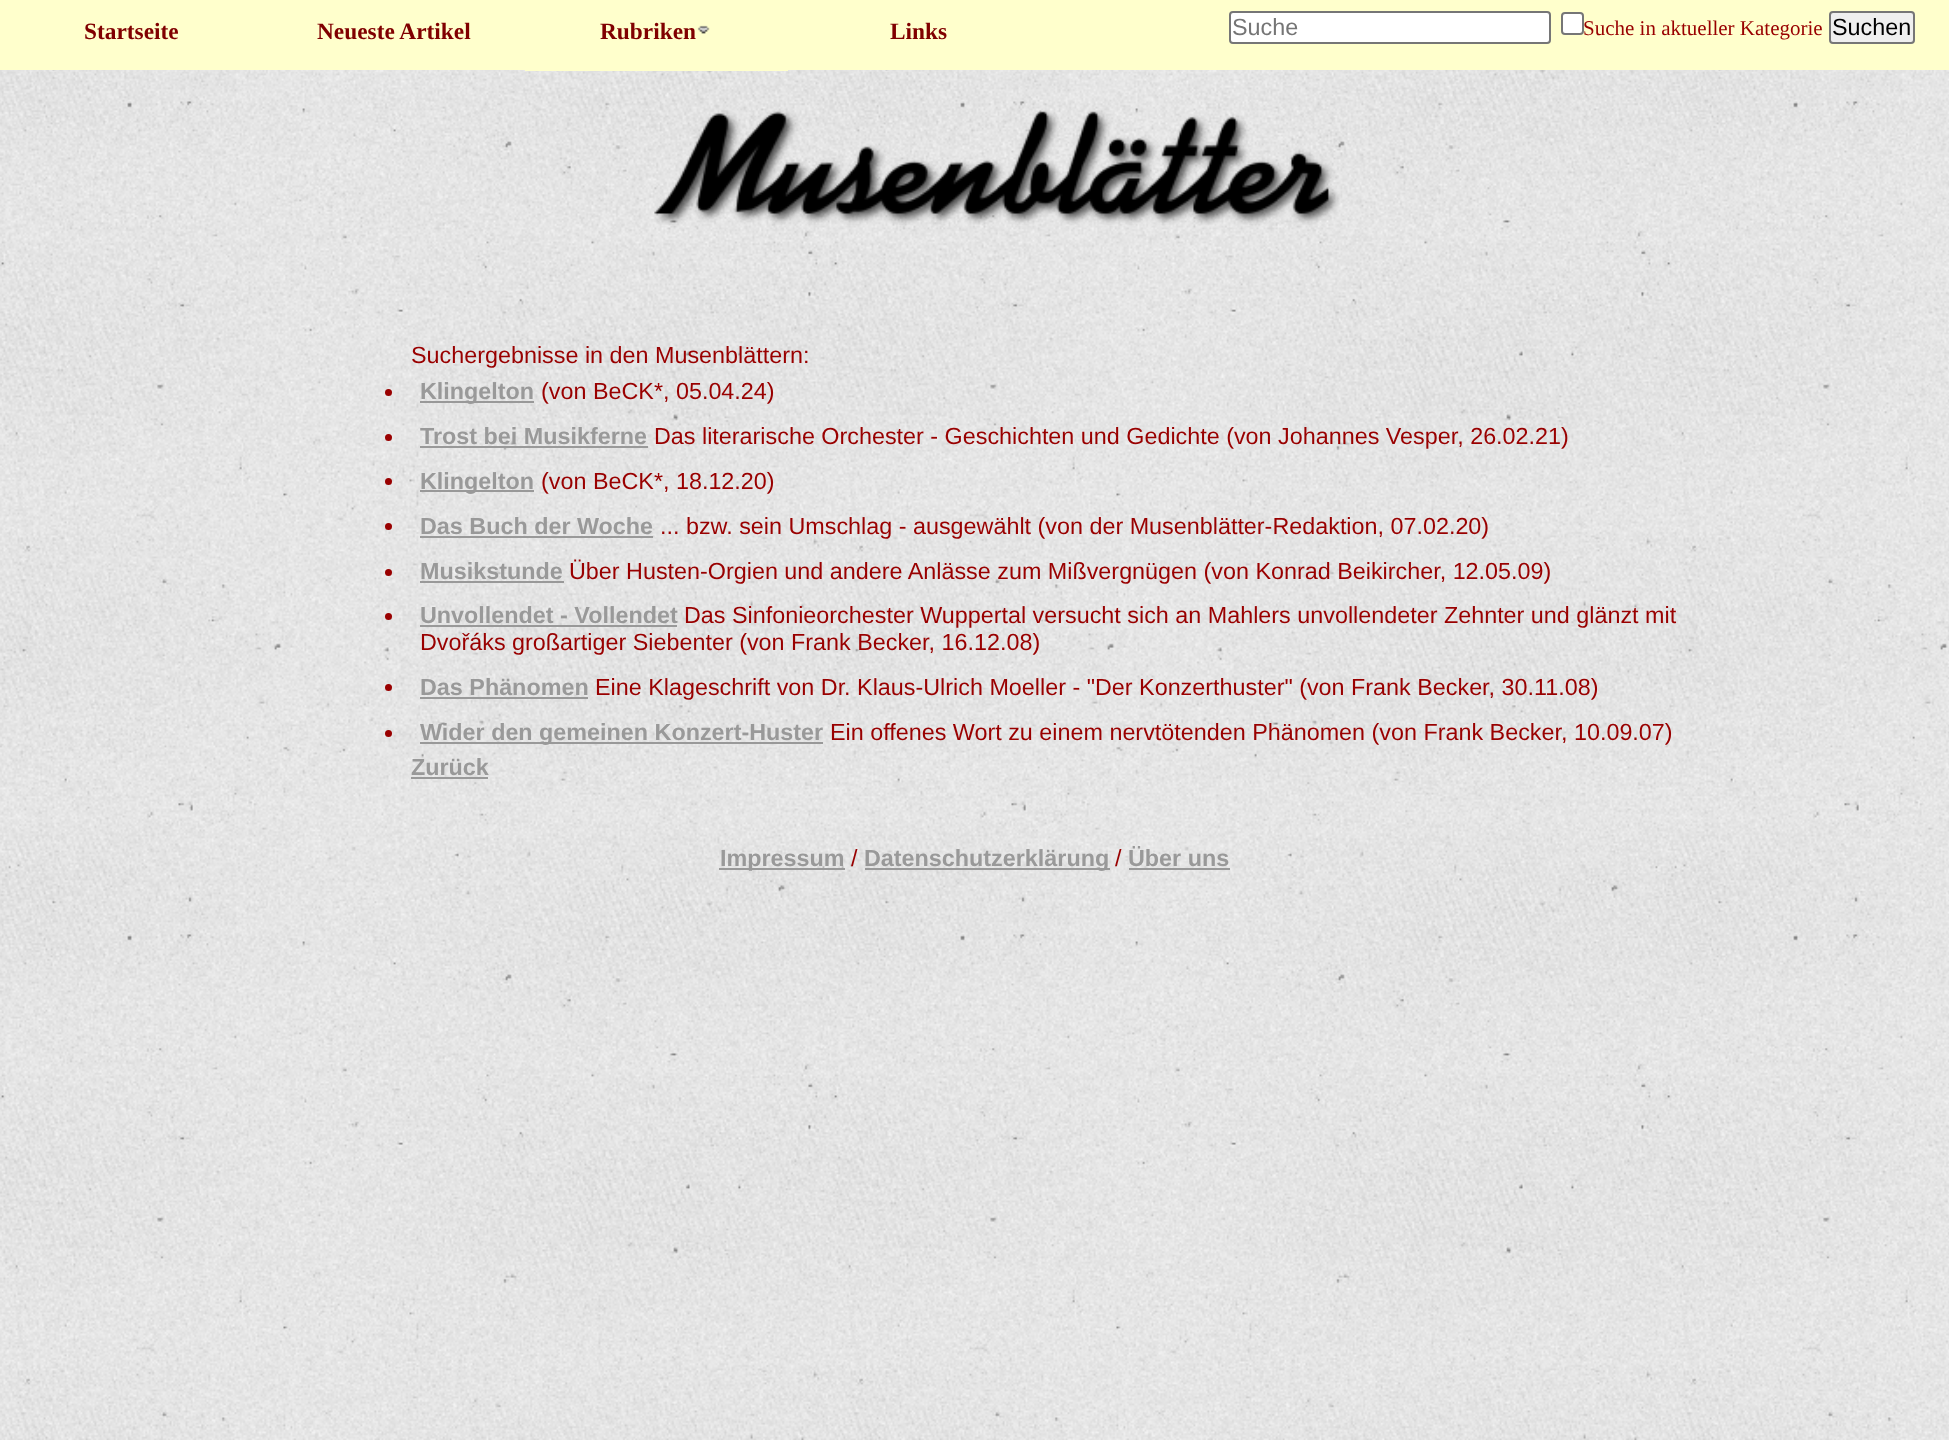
<!DOCTYPE html>
<meta charset="utf-8">
<style>body { margin: 0 } canvas { display: block }</style>
<canvas id="canvas" width="1949" height="1440"></canvas>
<img id="img1" src="img_01.png" hidden>
<img id="img2" src="img_02.png" hidden>
<img id="img3" src="img_03.png" hidden>
<script>
window.onload = function () {
	const canvas = document.getElementById("canvas");
	const ctx = canvas.getContext("2d");
	ctx.miterLimit = 4;
	ctx.fontKerning = "normal";
	function txt(s, x, y) {
		ctx.fillText(s, x, y);
	}
	function fill(x, y, w, h) {
		ctx.fillRect(x, y, w, h);
	}
	function img(id, x, y, w, h) {
		ctx.drawImage(document.getElementById(id), x, y, w, h);
	}

	ctx.fillStyle = "#FFFFFF";
	fill(0, 0, 1949, 1440);
	img("img1", 0, 70, 1949, 1370);
	ctx.fillStyle = "#FFFFCC";
	fill(0, 0, 1949, 70);
	img("img2", 697, 25, 13, 9);
	fill(525, 70, 263, 1);
	ctx.fillStyle = "#FFFFFF";
	ctx.beginPath();
	ctx.roundRect(1230, 12, 320, 31, 3);
	ctx.fill();
	ctx.strokeStyle = "#767676";
	ctx.lineWidth = 2;
	ctx.stroke();
	ctx.beginPath();
	ctx.roundRect(1562, 13, 21, 21, 3);
	ctx.fill();
	ctx.stroke();
	ctx.fillStyle = "#EFEFEF";
	ctx.beginPath();
	ctx.roundRect(1830, 12, 84, 31, 3);
	ctx.fill();
	ctx.stroke();
	img("img3", 654, 110, 686, 115);
	ctx.fillStyle = "#990000";
	ctx.beginPath();
	ctx.arc(388.5, 392.5, 3.5, 0, Math.PI * 2);
	ctx.fill();
	ctx.fillStyle = "#999999";
	fill(420, 401, 114, 2);
	ctx.fillStyle = "#990000";
	ctx.beginPath();
	ctx.arc(388.5, 437.5, 3.5, 0, Math.PI * 2);
	ctx.fill();
	ctx.fillStyle = "#999999";
	fill(420, 446, 228, 2);
	ctx.fillStyle = "#990000";
	ctx.beginPath();
	ctx.arc(388.5, 481.5, 3.5, 0, Math.PI * 2);
	ctx.fill();
	ctx.fillStyle = "#999999";
	fill(420, 490, 114, 2);
	ctx.fillStyle = "#990000";
	ctx.beginPath();
	ctx.arc(388.5, 526.5, 3.5, 0, Math.PI * 2);
	ctx.fill();
	ctx.fillStyle = "#999999";
	fill(420, 536, 233, 2);
	ctx.fillStyle = "#990000";
	ctx.beginPath();
	ctx.arc(388.5, 572.5, 3.5, 0, Math.PI * 2);
	ctx.fill();
	ctx.fillStyle = "#999999";
	fill(420, 581, 144, 2);
	ctx.fillStyle = "#990000";
	ctx.beginPath();
	ctx.arc(388.5, 616.5, 3.5, 0, Math.PI * 2);
	ctx.fill();
	ctx.fillStyle = "#999999";
	fill(420, 625, 257, 2);
	ctx.fillStyle = "#990000";
	ctx.beginPath();
	ctx.arc(388.5, 687.5, 3.5, 0, Math.PI * 2);
	ctx.fill();
	ctx.fillStyle = "#999999";
	fill(420, 697, 168, 2);
	ctx.fillStyle = "#990000";
	ctx.beginPath();
	ctx.arc(388.5, 733.5, 3.5, 0, Math.PI * 2);
	ctx.fill();
	ctx.fillStyle = "#999999";
	fill(420, 742, 403, 2);
	fill(411, 777, 77, 2);
	fill(719, 868, 126, 2);
	fill(865, 868, 245, 2);
	fill(1129, 868, 101, 2);
	ctx.font = "bold 23.35px Liberation Serif";
	ctx.fillStyle = "#800000";
	txt("Startseite", 84, 39);
	txt("Neueste Artikel", 317, 39);
	txt("Rubriken", 600, 39);
	txt("Links", 890, 39);
	ctx.font = "23.35px Liberation Sans";
	ctx.fillStyle = "#757575";
	txt("Suche", 1232, 35);
	ctx.font = "21px Liberation Serif";
	ctx.fillStyle = "#990000";
	txt("Suche in aktueller Kategorie", 1583, 35);
	ctx.font = "23.35px Liberation Sans";
	ctx.fillStyle = "#000000";
	txt("Suchen", 1832, 35);
	ctx.fillStyle = "#990000";
	txt("Suchergebnisse in den Musenblättern:", 411, 363);
	ctx.font = "bold 23.35px Liberation Sans";
	ctx.fillStyle = "#999999";
	txt("Klingelton", 420, 399);
	ctx.font = "23.35px Liberation Sans";
	ctx.fillStyle = "#990000";
	txt("(von BeCK*, 05.04.24)", 541, 399);
	ctx.font = "bold 23.35px Liberation Sans";
	ctx.fillStyle = "#999999";
	txt("Trost bei Musikferne", 420, 444);
	ctx.font = "23.35px Liberation Sans";
	ctx.fillStyle = "#990000";
	txt("Das literarische Orchester - Geschichten und Gedichte (von Johannes Vesper, 26.02.21)", 654, 444);
	ctx.font = "bold 23.35px Liberation Sans";
	ctx.fillStyle = "#999999";
	txt("Klingelton", 420, 489);
	ctx.font = "23.35px Liberation Sans";
	ctx.fillStyle = "#990000";
	txt("(von BeCK*, 18.12.20)", 541, 489);
	ctx.font = "bold 23.35px Liberation Sans";
	ctx.fillStyle = "#999999";
	txt("Das Buch der Woche", 420, 534);
	ctx.font = "23.35px Liberation Sans";
	ctx.fillStyle = "#990000";
	txt("... bzw. sein Umschlag - ausgewählt (von der Musenblätter-Redaktion, 07.02.20)", 660, 534);
	ctx.font = "bold 23.35px Liberation Sans";
	ctx.fillStyle = "#999999";
	txt("Musikstunde", 420, 579);
	ctx.font = "23.35px Liberation Sans";
	ctx.fillStyle = "#990000";
	txt("Über Husten-Orgien und andere Anlässe zum Mißvergnügen (von Konrad Beikircher, 12.05.09)", 569, 579);
	ctx.font = "bold 23.35px Liberation Sans";
	ctx.fillStyle = "#999999";
	txt("Unvollendet - Vollendet", 420, 623);
	ctx.font = "23.35px Liberation Sans";
	ctx.fillStyle = "#990000";
	txt("Das Sinfonieorchester Wuppertal versucht sich an Mahlers unvollendeter Zehnter und glänzt mit", 684, 623);
	txt("Dvořáks großartiger Siebenter (von Frank Becker, 16.12.08)", 420, 650);
	ctx.font = "bold 23.35px Liberation Sans";
	ctx.fillStyle = "#999999";
	txt("Das Phänomen", 420, 695);
	ctx.font = "23.35px Liberation Sans";
	ctx.fillStyle = "#990000";
	txt("Eine Klageschrift von Dr. Klaus-Ulrich Moeller - \"Der Konzerthuster\" (von Frank Becker, 30.11.08)", 595, 695);
	ctx.font = "bold 23.35px Liberation Sans";
	ctx.fillStyle = "#999999";
	txt("Wider den gemeinen Konzert-Huster", 420, 740);
	ctx.font = "23.35px Liberation Sans";
	ctx.fillStyle = "#990000";
	txt("Ein offenes Wort zu einem nervtötenden Phänomen (von Frank Becker, 10.09.07)", 830, 740);
	ctx.font = "bold 23.35px Liberation Sans";
	ctx.fillStyle = "#999999";
	txt("Zurück", 411, 775);
	txt("Impressum", 720, 866);
	ctx.font = "23.35px Liberation Sans";
	ctx.fillStyle = "#990000";
	txt("/", 851, 866);
	ctx.font = "bold 23.35px Liberation Sans";
	ctx.fillStyle = "#999999";
	txt("Datenschutzerklärung", 864, 866);
	ctx.font = "23.35px Liberation Sans";
	ctx.fillStyle = "#990000";
	txt("/", 1115, 866);
	ctx.font = "bold 23.35px Liberation Sans";
	ctx.fillStyle = "#999999";
	txt("Über uns", 1128, 866);
};
</script>
